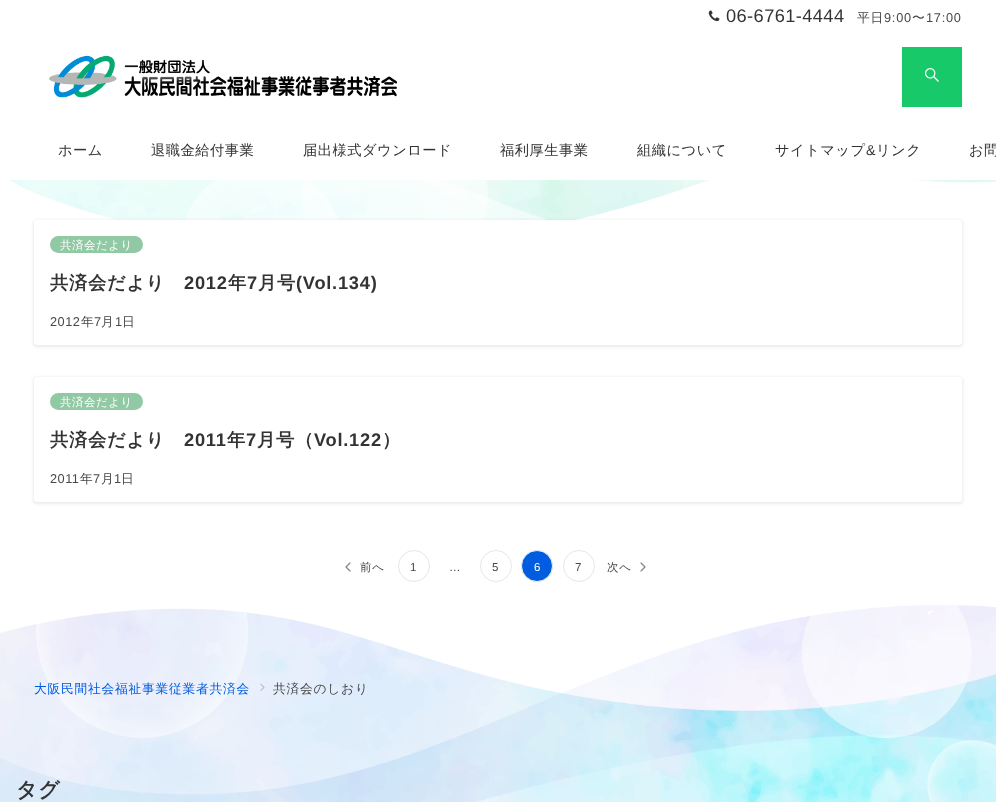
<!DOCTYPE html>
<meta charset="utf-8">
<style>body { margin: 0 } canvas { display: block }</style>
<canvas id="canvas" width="996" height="802"></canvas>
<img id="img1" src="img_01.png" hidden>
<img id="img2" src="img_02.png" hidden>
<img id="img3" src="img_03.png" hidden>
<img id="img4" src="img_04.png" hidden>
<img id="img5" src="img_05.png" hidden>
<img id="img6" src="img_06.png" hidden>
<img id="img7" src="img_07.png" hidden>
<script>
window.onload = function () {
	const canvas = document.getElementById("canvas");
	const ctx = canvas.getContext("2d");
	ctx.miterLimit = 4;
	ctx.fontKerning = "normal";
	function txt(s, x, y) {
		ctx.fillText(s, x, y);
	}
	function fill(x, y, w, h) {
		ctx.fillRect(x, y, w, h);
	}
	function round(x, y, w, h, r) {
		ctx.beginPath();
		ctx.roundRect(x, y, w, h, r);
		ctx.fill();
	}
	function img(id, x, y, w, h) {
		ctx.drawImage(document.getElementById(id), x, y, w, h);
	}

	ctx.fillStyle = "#FFFFFF";
	fill(0, 0, 996, 802);
	img("img1", 0, 180, 996, 622);
	img("img2", 708, 10, 12, 12);
	img("img3", 49, 55, 348, 43);
	ctx.fillStyle = "#18C96A";
	fill(902, 47, 60, 60);
	img("img4", 925, 68, 14, 14);
	ctx.fillStyle = "rgba(0, 0, 0, 0.08)";
	ctx.filter = "blur(1.5px)";
	ctx.beginPath();
	ctx.roundRect(33, 220, 930, 127, 4);
	ctx.fill();
	ctx.filter = "none";
	ctx.fillStyle = "#FFFFFF";
	round(34, 220, 928, 125, 3);
	ctx.fillStyle = "#91C9A4";
	round(50, 236, 93, 17, 8.5);
	ctx.fillStyle = "rgba(0, 0, 0, 0.08)";
	ctx.filter = "blur(1.5px)";
	ctx.beginPath();
	ctx.roundRect(33, 377, 930, 127, 4);
	ctx.fill();
	ctx.filter = "none";
	ctx.fillStyle = "#FFFFFF";
	round(34, 377, 928, 125, 3);
	ctx.fillStyle = "#91C9A4";
	round(50, 393, 93, 17, 8.5);
	img("img5", 345, 562, 6, 10);
	ctx.beginPath();
	ctx.arc(414, 566, 15.5, 0, Math.PI * 2);
	ctx.strokeStyle = "#E5E7E8";
	ctx.stroke();
	ctx.beginPath();
	ctx.arc(496, 566, 15.5, 0, Math.PI * 2);
	ctx.stroke();
	ctx.fillStyle = "#005DE0";
	ctx.beginPath();
	ctx.arc(537, 566, 15.5, 0, Math.PI * 2);
	ctx.fill();
	ctx.strokeStyle = "#EEEFF0";
	ctx.stroke();
	ctx.beginPath();
	ctx.arc(579, 566, 15.5, 0, Math.PI * 2);
	ctx.strokeStyle = "#E5E7E8";
	ctx.stroke();
	img("img6", 640, 562, 6, 10);
	img("img7", 260, 683, 5, 8);
	ctx.letterSpacing = "0.4px";
	ctx.font = "18.25px Liberation Sans";
	ctx.fillStyle = "#333333";
	txt("06-6761-4444", 726, 22);
	ctx.letterSpacing = "0.75px";
	ctx.font = "500 12.75px WenQuanYi Zen Hei";
	ctx.fillStyle = "#484848";
	txt("平日", 857, 22);
	ctx.font = "12.75px Liberation Sans";
	txt("9:00", 884, 22);
	ctx.font = "500 12.75px WenQuanYi Zen Hei";
	txt("〜", 912, 22);
	ctx.font = "12.75px Liberation Sans";
	txt("17:00", 926, 22);
	ctx.letterSpacing = "0.5px";
	ctx.font = "500 14.25px WenQuanYi Zen Hei";
	ctx.fillStyle = "#333333";
	txt("ホーム", 58, 155);
	txt("退職金給付事業", 151, 155);
	txt("届出様式ダウンロード", 303, 155);
	txt("福利厚生事業", 500, 155);
	txt("組織について", 637, 155);
	txt("サイトマップ", 775, 155);
	ctx.font = "14.25px Liberation Sans";
	txt("&", 866, 155);
	ctx.font = "500 14.25px WenQuanYi Zen Hei";
	txt("リンク", 876, 155);
	txt("お問", 969, 155);
	ctx.font = "500 11.5px WenQuanYi Zen Hei";
	ctx.fillStyle = "#FFFFFF";
	txt("共済会だより", 60, 249);
	ctx.letterSpacing = "0.75px";
	ctx.font = "bold 18.25px WenQuanYi Zen Hei";
	ctx.fillStyle = "#333333";
	txt("共済会だより", 50, 289);
	ctx.font = "bold 18.25px Liberation Sans";
	txt("2012", 184, 289);
	ctx.font = "bold 18.25px WenQuanYi Zen Hei";
	txt("年", 228, 289);
	ctx.font = "bold 18.25px Liberation Sans";
	txt("7", 247, 289);
	ctx.font = "bold 18.25px WenQuanYi Zen Hei";
	txt("月号", 258, 289);
	ctx.font = "bold 18.25px Liberation Sans";
	txt("(Vol.134)", 296, 289);
	ctx.letterSpacing = "0.5px";
	ctx.font = "12.75px Liberation Sans";
	ctx.fillStyle = "#484848";
	txt("2012", 50, 326);
	ctx.font = "500 12.75px WenQuanYi Zen Hei";
	txt("年", 81, 326);
	ctx.font = "12.75px Liberation Sans";
	txt("7", 94, 326);
	ctx.font = "500 12.75px WenQuanYi Zen Hei";
	txt("月", 101, 326);
	ctx.font = "12.75px Liberation Sans";
	txt("1", 115, 326);
	ctx.font = "500 12.75px WenQuanYi Zen Hei";
	txt("日", 122, 326);
	ctx.font = "500 11.5px WenQuanYi Zen Hei";
	ctx.fillStyle = "#FFFFFF";
	txt("共済会だより", 60, 406);
	ctx.letterSpacing = "0.75px";
	ctx.font = "bold 18.25px WenQuanYi Zen Hei";
	ctx.fillStyle = "#333333";
	txt("共済会だより", 50, 446);
	ctx.font = "bold 18.25px Liberation Sans";
	txt("2011", 184, 446);
	ctx.font = "bold 18.25px WenQuanYi Zen Hei";
	txt("年", 227, 446);
	ctx.font = "bold 18.25px Liberation Sans";
	txt("7", 246, 446);
	ctx.font = "bold 18.25px WenQuanYi Zen Hei";
	txt("月号（", 257, 446);
	ctx.font = "bold 18.25px Liberation Sans";
	txt("Vol.122", 314, 446);
	ctx.font = "bold 18.25px WenQuanYi Zen Hei";
	txt("）", 382, 446);
	ctx.letterSpacing = "0.5px";
	ctx.font = "12.75px Liberation Sans";
	ctx.fillStyle = "#484848";
	txt("2011", 50, 483);
	ctx.font = "500 12.75px WenQuanYi Zen Hei";
	txt("年", 80, 483);
	ctx.font = "12.75px Liberation Sans";
	txt("7", 93, 483);
	ctx.font = "500 12.75px WenQuanYi Zen Hei";
	txt("月", 101, 483);
	ctx.font = "12.75px Liberation Sans";
	txt("1", 114, 483);
	ctx.font = "500 12.75px WenQuanYi Zen Hei";
	txt("日", 121, 483);
	ctx.letterSpacing = "0.75px";
	ctx.font = "500 11.5px WenQuanYi Zen Hei";
	txt("前へ", 360, 571);
	ctx.font = "11.5px Liberation Sans";
	txt("1", 410, 571);
	txt("…", 449, 571);
	txt("5", 492, 571);
	ctx.fillStyle = "#FFFFFF";
	txt("6", 534, 571);
	ctx.fillStyle = "#484848";
	txt("7", 575, 571);
	ctx.font = "500 11.5px WenQuanYi Zen Hei";
	txt("次へ", 607, 571);
	ctx.font = "500 12.75px WenQuanYi Zen Hei";
	ctx.fillStyle = "#005DE0";
	txt("大阪民間社会福祉事業従業者共済会", 34, 693);
	ctx.fillStyle = "#484848";
	txt("共済会のしおり", 273, 693);
	ctx.font = "bold 21px WenQuanYi Zen Hei";
	ctx.fillStyle = "#333333";
	txt("タグ", 16, 797);
};
</script>
